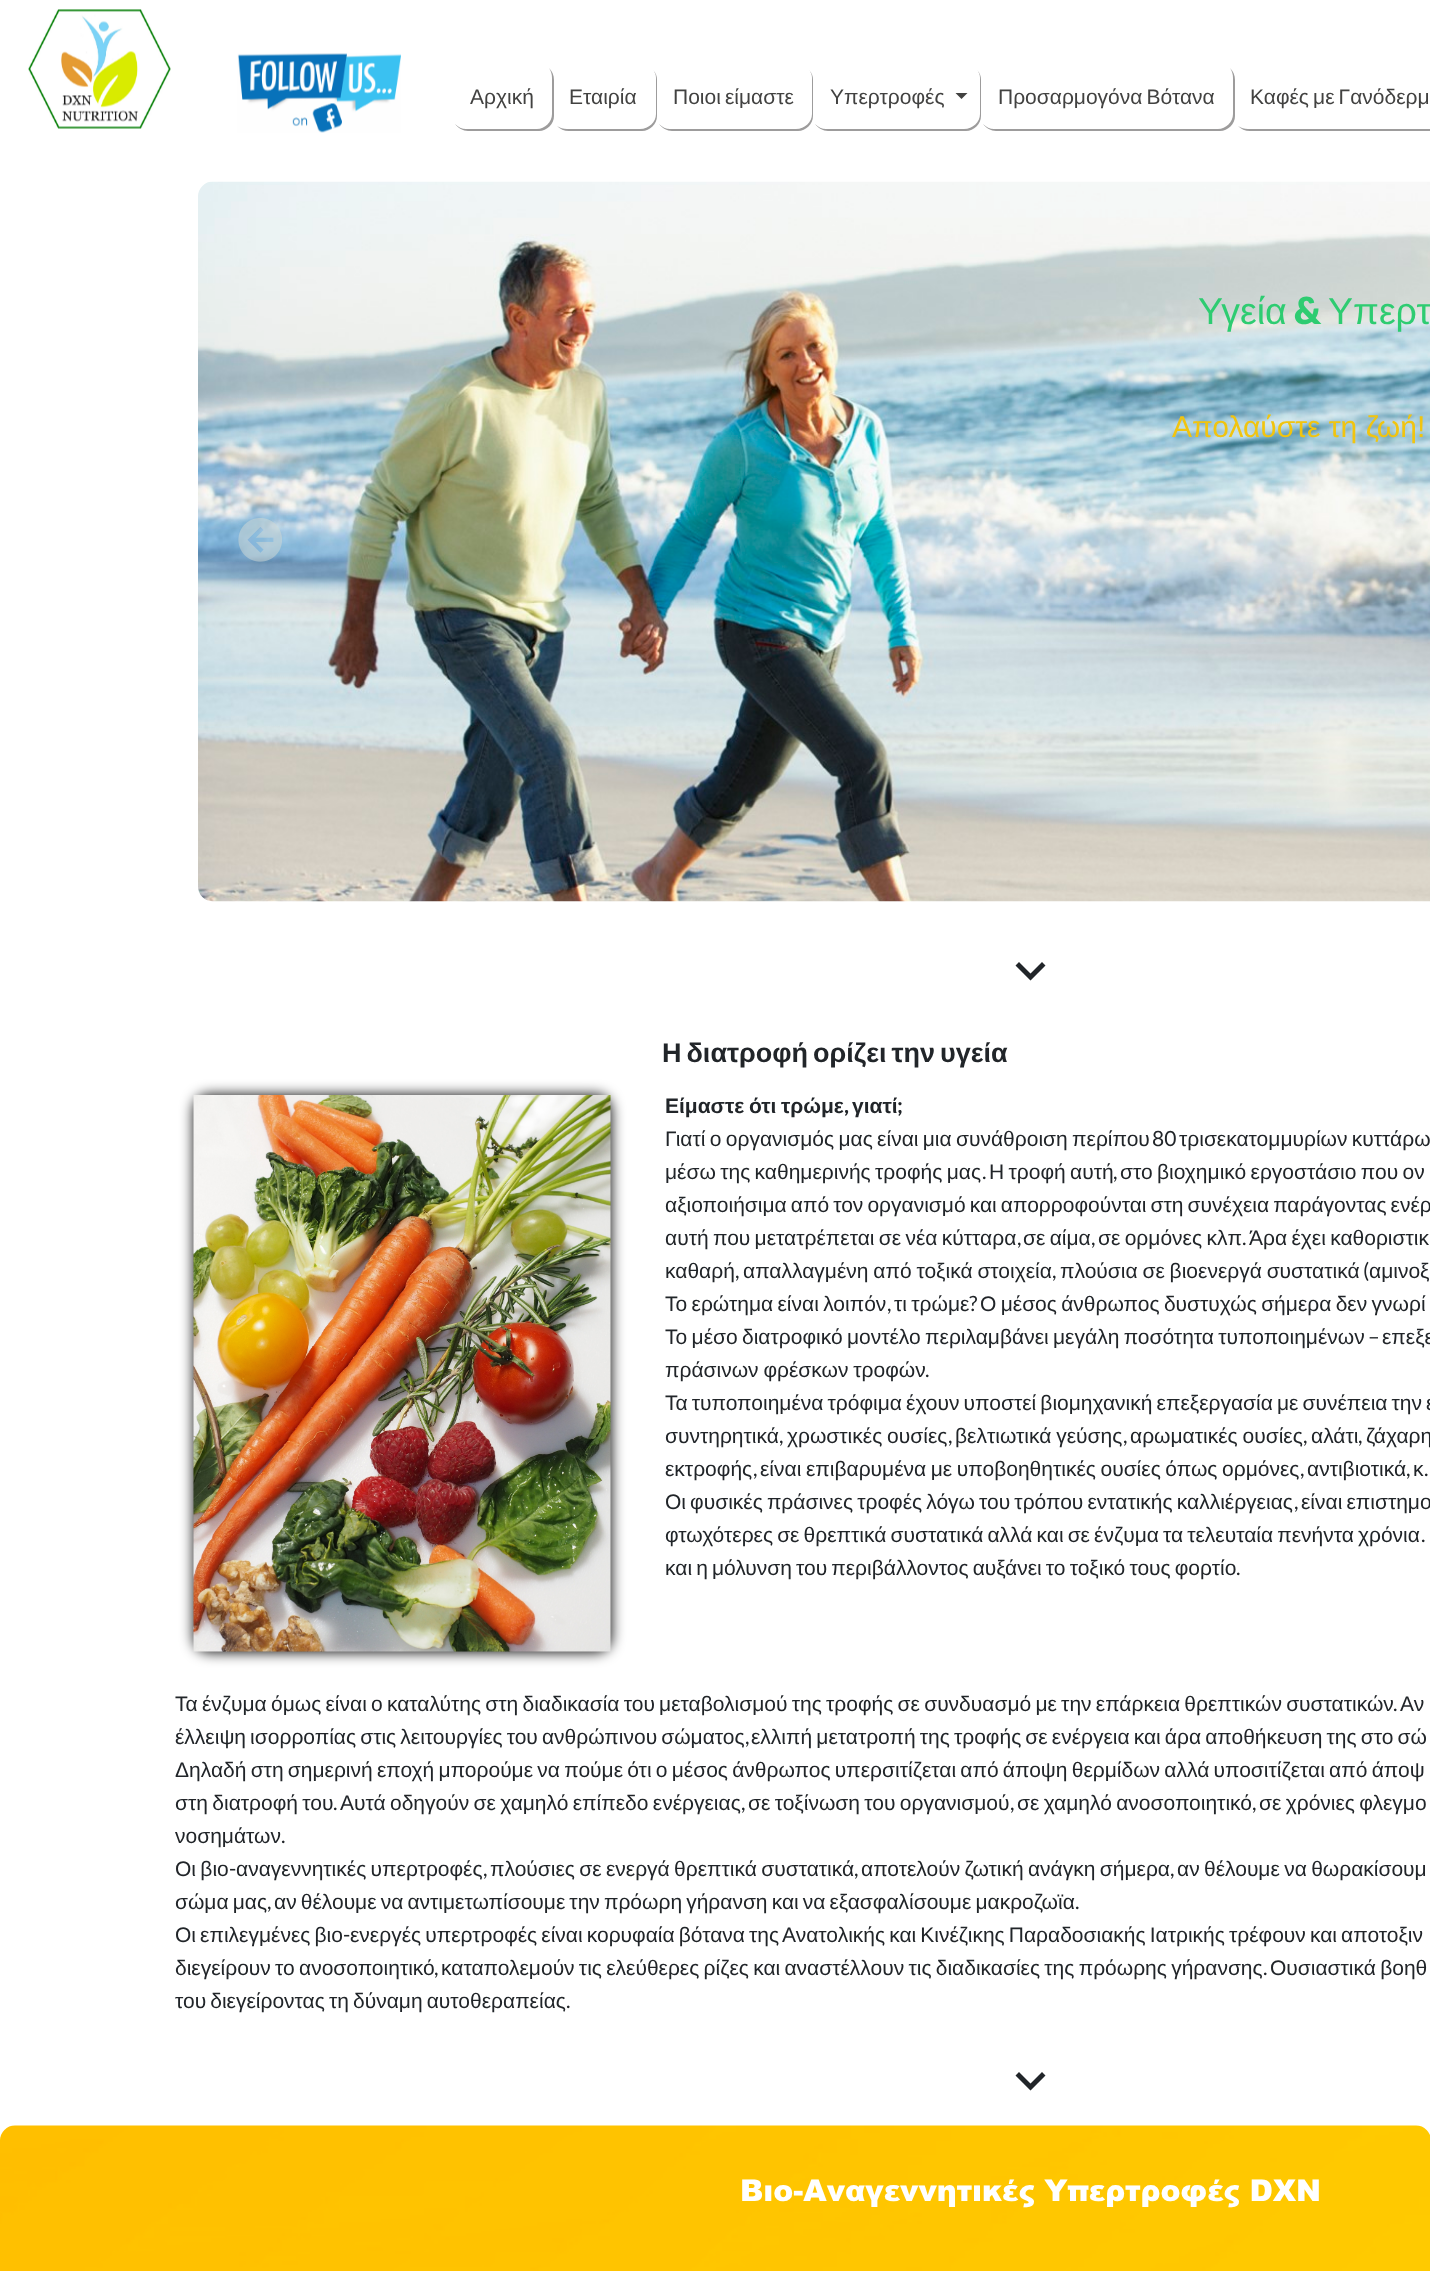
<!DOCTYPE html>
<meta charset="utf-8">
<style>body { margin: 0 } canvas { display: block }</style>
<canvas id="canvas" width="1430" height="2271"></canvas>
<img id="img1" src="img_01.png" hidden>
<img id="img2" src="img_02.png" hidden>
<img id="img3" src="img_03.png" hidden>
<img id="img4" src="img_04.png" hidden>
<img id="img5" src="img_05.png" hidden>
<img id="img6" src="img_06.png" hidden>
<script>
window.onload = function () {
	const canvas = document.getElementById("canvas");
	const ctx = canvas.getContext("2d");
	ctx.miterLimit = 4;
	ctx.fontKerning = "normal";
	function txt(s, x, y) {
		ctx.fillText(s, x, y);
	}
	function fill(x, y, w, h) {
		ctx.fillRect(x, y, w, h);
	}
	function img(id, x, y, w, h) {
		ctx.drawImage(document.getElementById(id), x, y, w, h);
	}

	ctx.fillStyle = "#FFFFFF";
	fill(0, 0, 1430, 2271);
	img("img1", 28, 9, 143, 120);
	img("img2", 237, 53, 164, 80);
	ctx.fillStyle = "#9D9C9C";
	ctx.beginPath();
	ctx.moveTo(455, 124);
	ctx.bezierCurveTo(458, 128, 463, 131, 468, 131);
	ctx.lineTo(539, 131);
	ctx.bezierCurveTo(547, 131, 554, 124, 554, 116);
	ctx.lineTo(554, 80);
	ctx.bezierCurveTo(554, 75, 552, 71, 549, 68);
	ctx.bezierCurveTo(551, 71, 552, 74, 552, 78);
	ctx.lineTo(552, 114);
	ctx.bezierCurveTo(552, 122, 545, 129, 537, 129);
	ctx.lineTo(466, 129);
	ctx.bezierCurveTo(462, 129, 458, 127, 455, 124);
	ctx.closePath();
	ctx.fill();
	ctx.beginPath();
	ctx.moveTo(557, 126);
	ctx.bezierCurveTo(560, 129, 564, 131, 569, 131);
	ctx.lineTo(642, 131);
	ctx.bezierCurveTo(650, 131, 657, 124, 657, 116);
	ctx.lineTo(657, 80);
	ctx.bezierCurveTo(657, 76, 656, 73, 653, 70);
	ctx.bezierCurveTo(655, 72, 656, 75, 656, 78);
	ctx.lineTo(656, 114);
	ctx.bezierCurveTo(656, 122, 649, 129, 640, 129);
	ctx.lineTo(567, 129);
	ctx.bezierCurveTo(563, 129, 560, 128, 557, 126);
	ctx.closePath();
	ctx.fill();
	ctx.beginPath();
	ctx.moveTo(659, 124);
	ctx.bezierCurveTo(662, 128, 667, 131, 672, 131);
	ctx.lineTo(798, 131);
	ctx.bezierCurveTo(806, 131, 813, 124, 813, 116);
	ctx.lineTo(813, 80);
	ctx.bezierCurveTo(813, 76, 812, 73, 809, 70);
	ctx.bezierCurveTo(811, 72, 812, 75, 812, 78);
	ctx.lineTo(812, 114);
	ctx.bezierCurveTo(812, 122, 805, 129, 796, 129);
	ctx.lineTo(670, 129);
	ctx.bezierCurveTo(666, 129, 662, 127, 659, 124);
	ctx.closePath();
	ctx.fill();
	ctx.beginPath();
	ctx.moveTo(815, 124);
	ctx.bezierCurveTo(818, 128, 823, 131, 828, 131);
	ctx.lineTo(966, 131);
	ctx.bezierCurveTo(974, 131, 981, 124, 981, 116);
	ctx.lineTo(981, 80);
	ctx.bezierCurveTo(981, 76, 980, 73, 977, 70);
	ctx.bezierCurveTo(979, 72, 980, 75, 980, 78);
	ctx.lineTo(980, 114);
	ctx.bezierCurveTo(980, 122, 973, 129, 964, 129);
	ctx.lineTo(826, 129);
	ctx.bezierCurveTo(822, 129, 818, 127, 815, 124);
	ctx.closePath();
	ctx.fill();
	ctx.fillStyle = "#424241";
	ctx.beginPath();
	ctx.moveTo(955.5, 93);
	ctx.lineTo(967.5, 93);
	ctx.lineTo(961.5, 99);
	ctx.closePath();
	ctx.fill();
	ctx.fillStyle = "#9D9C9C";
	ctx.beginPath();
	ctx.moveTo(983, 124);
	ctx.bezierCurveTo(986, 128, 991, 131, 996, 131);
	ctx.lineTo(1220, 131);
	ctx.bezierCurveTo(1228, 131, 1235, 124, 1235, 116);
	ctx.lineTo(1235, 80);
	ctx.bezierCurveTo(1235, 75, 1233, 71, 1230, 68);
	ctx.bezierCurveTo(1232, 71, 1233, 74, 1233, 78);
	ctx.lineTo(1233, 114);
	ctx.bezierCurveTo(1233, 122, 1226, 129, 1218, 129);
	ctx.lineTo(994, 129);
	ctx.bezierCurveTo(990, 129, 986, 127, 983, 124);
	ctx.closePath();
	ctx.fill();
	ctx.beginPath();
	ctx.moveTo(1238, 126);
	ctx.bezierCurveTo(1241, 129, 1245, 131, 1250, 131);
	ctx.lineTo(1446, 131);
	ctx.bezierCurveTo(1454, 131, 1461, 124, 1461, 116);
	ctx.lineTo(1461, 80);
	ctx.bezierCurveTo(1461, 76, 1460, 73, 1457, 70);
	ctx.bezierCurveTo(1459, 72, 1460, 75, 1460, 78);
	ctx.lineTo(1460, 114);
	ctx.bezierCurveTo(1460, 122, 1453, 129, 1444, 129);
	ctx.lineTo(1248, 129);
	ctx.bezierCurveTo(1244, 129, 1241, 128, 1238, 126);
	ctx.closePath();
	ctx.fill();
	img("img3", 198, 181, 1232, 721);
	img("img4", 238, 518, 44, 44);
	ctx.fillStyle = "#212529";
	ctx.beginPath();
	ctx.moveTo(1019, 962);
	ctx.lineTo(1030.5, 973.5);
	ctx.lineTo(1042, 962);
	ctx.lineTo(1045.5, 965.5);
	ctx.lineTo(1030.5, 980.5);
	ctx.lineTo(1015.5, 965.5);
	ctx.closePath();
	ctx.fill();
	ctx.fillStyle = "#000000";
	ctx.filter = "blur(7px)";
	ctx.beginPath();
	ctx.roundRect(194, 1095, 417, 557, 15);
	ctx.fill();
	ctx.filter = "none";
	img("img5", 193, 1095, 418, 557);
	ctx.fillStyle = "#212529";
	ctx.beginPath();
	ctx.moveTo(1019, 2072);
	ctx.lineTo(1030.5, 2083.5);
	ctx.lineTo(1042, 2072);
	ctx.lineTo(1045.5, 2075.5);
	ctx.lineTo(1030.5, 2090.5);
	ctx.lineTo(1015.5, 2075.5);
	ctx.closePath();
	ctx.fill();
	img("img6", 0, 2125, 1430, 146);
	ctx.font = "21px Liberation Sans";
	ctx.fillStyle = "#424241";
	txt("Αρχική", 470, 104);
	txt("Εταιρία", 569, 104);
	ctx.wordSpacing = "-1.75px";
	txt("Ποιοι είμαστε", 673, 104);
	ctx.wordSpacing = "0px";
	txt("Υπερτροφές", 830, 104);
	ctx.wordSpacing = "-1.75px";
	txt("Προσαρμογόνα Βότανα", 998, 104);
	txt("Καφές με Γανόδερμ", 1250, 104);
	ctx.wordSpacing = "0px";
	ctx.font = "37.5px Liberation Sans";
	ctx.fillStyle = "#2ECC71";
	txt("Υγεία", 1198, 324);
	ctx.font = "900 37.5px Lato";
	txt("&", 1294, 324);
	ctx.font = "37.5px Liberation Sans";
	txt("Υπερτ", 1328, 324);
	ctx.font = "30px Liberation Sans";
	ctx.fillStyle = "#F1C40F";
	txt("Απολαύστε τη ζωή!", 1172, 437);
	ctx.wordSpacing = "-2.5px";
	ctx.font = "bold 27px Liberation Sans";
	ctx.fillStyle = "#212529";
	txt("Η διατροφή ορίζει την υγεία", 662, 1062);
	ctx.wordSpacing = "-1.25px";
	ctx.font = "bold 21px Liberation Sans";
	txt("Είμαστε ότι τρώμε", 665, 1113);
	ctx.wordSpacing = "0px";
	ctx.font = "bold 21px Lato";
	txt(",", 844, 1113);
	ctx.font = "bold 21px Liberation Sans";
	txt("γιατί", 852, 1113);
	ctx.font = "bold 21px Lato";
	txt(";", 897, 1113);
	ctx.wordSpacing = "-1.5px";
	ctx.font = "21px Liberation Sans";
	txt("Γιατί ο οργανισμός μας είναι μια συνάθροιση περίπου", 665, 1146);
	ctx.wordSpacing = "0px";
	ctx.font = "21px Lato";
	txt("80", 1152, 1146);
	ctx.wordSpacing = "-1.5px";
	ctx.font = "21px Liberation Sans";
	txt("τρισεκατομμυρίων κυττάρω", 1179, 1146);
	txt("μέσω της καθημερινής τροφής μας", 665, 1179);
	ctx.wordSpacing = "0px";
	ctx.font = "21px Lato";
	txt(".", 982, 1179);
	ctx.wordSpacing = "-1.5px";
	ctx.font = "21px Liberation Sans";
	txt("Η τροφή αυτή", 989, 1179);
	ctx.wordSpacing = "0px";
	ctx.font = "21px Lato";
	txt(",", 1113, 1179);
	ctx.wordSpacing = "-1.5px";
	ctx.font = "21px Liberation Sans";
	txt("στο βιοχημικό εργοστάσιο που ον", 1120, 1179);
	ctx.wordSpacing = "-1.75px";
	txt("αξιοποιήσιμα από τον οργανισμό και απορροφούνται στη συνέχεια παράγοντας ενέρ", 665, 1212);
	ctx.wordSpacing = "-1.5px";
	txt("αυτή που μετατρέπεται σε νέα κύτταρα", 665, 1245);
	ctx.wordSpacing = "0px";
	ctx.font = "21px Lato";
	txt(",", 1017, 1245);
	ctx.wordSpacing = "-1.5px";
	ctx.font = "21px Liberation Sans";
	txt("σε αίμα", 1023, 1245);
	ctx.wordSpacing = "0px";
	ctx.font = "21px Lato";
	txt(",", 1091, 1245);
	ctx.wordSpacing = "-1.5px";
	ctx.font = "21px Liberation Sans";
	txt("σε ορμόνες κλπ", 1098, 1245);
	ctx.wordSpacing = "0px";
	ctx.font = "21px Lato";
	txt(".", 1242, 1245);
	ctx.wordSpacing = "-1.5px";
	ctx.font = "21px Liberation Sans";
	txt("Άρα έχει καθοριστικ", 1249, 1245);
	ctx.wordSpacing = "0px";
	txt("καθαρή", 665, 1278);
	ctx.font = "21px Lato";
	txt(",", 735, 1278);
	ctx.wordSpacing = "-1px";
	ctx.font = "21px Liberation Sans";
	txt("απαλλαγμένη από τοξικά στοιχεία", 743, 1278);
	ctx.wordSpacing = "0px";
	ctx.font = "21px Lato";
	txt(",", 1052, 1278);
	ctx.wordSpacing = "-1px";
	ctx.font = "21px Liberation Sans";
	txt("πλούσια σε βιοενεργά συστατικά", 1060, 1278);
	ctx.wordSpacing = "0px";
	ctx.font = "21px Lato";
	txt("(", 1363, 1278);
	ctx.font = "21px Liberation Sans";
	txt("αμινοξ", 1369, 1278);
	ctx.wordSpacing = "-1.5px";
	txt("Το ερώτημα είναι λοιπόν", 665, 1311);
	ctx.wordSpacing = "0px";
	ctx.font = "21px Lato";
	txt(",", 887, 1311);
	ctx.wordSpacing = "-1.5px";
	ctx.font = "21px Liberation Sans";
	txt("τι τρώμε", 894, 1311);
	ctx.wordSpacing = "0px";
	ctx.font = "21px Lato";
	txt("?", 969, 1311);
	ctx.wordSpacing = "-1.5px";
	ctx.font = "21px Liberation Sans";
	txt("Ο μέσος άνθρωπος δυστυχώς σήμερα δεν γνωρί", 980, 1311);
	txt("Το μέσο διατροφικό μοντέλο περιλαμβάνει μεγάλη ποσότητα τυποποιημένων", 665, 1344);
	ctx.wordSpacing = "0px";
	ctx.font = "21px Lato";
	txt("–", 1368, 1344);
	ctx.wordSpacing = "-1.5px";
	ctx.font = "21px Liberation Sans";
	txt("επεξε", 1382, 1344);
	ctx.wordSpacing = "-1px";
	txt("πράσινων φρέσκων τροφών", 665, 1377);
	ctx.wordSpacing = "0px";
	ctx.font = "21px Lato";
	txt(".", 925, 1377);
	ctx.wordSpacing = "-1.75px";
	ctx.font = "21px Liberation Sans";
	txt("Τα τυποποιημένα τρόφιμα έχουν υποστεί βιομηχανική επεξεργασία με συνέπεια την ε", 665, 1410);
	ctx.wordSpacing = "0px";
	txt("συντηρητικά", 665, 1443);
	ctx.font = "21px Lato";
	txt(",", 779, 1443);
	ctx.wordSpacing = "-1px";
	ctx.font = "21px Liberation Sans";
	txt("χρωστικές ουσίες", 787, 1443);
	ctx.wordSpacing = "0px";
	ctx.font = "21px Lato";
	txt(",", 948, 1443);
	ctx.wordSpacing = "-1px";
	ctx.font = "21px Liberation Sans";
	txt("βελτιωτικά γεύσης", 955, 1443);
	ctx.wordSpacing = "0px";
	ctx.font = "21px Lato";
	txt(",", 1123, 1443);
	ctx.wordSpacing = "-1px";
	ctx.font = "21px Liberation Sans";
	txt("αρωματικές ουσίες", 1130, 1443);
	ctx.wordSpacing = "0px";
	ctx.font = "21px Lato";
	txt(",", 1303, 1443);
	ctx.font = "21px Liberation Sans";
	txt("αλάτι", 1311, 1443);
	ctx.font = "21px Lato";
	txt(",", 1358, 1443);
	ctx.font = "21px Liberation Sans";
	txt("ζάχαρη", 1366, 1443);
	txt("εκτροφής", 665, 1476);
	ctx.font = "21px Lato";
	txt(",", 753, 1476);
	ctx.wordSpacing = "-1.25px";
	ctx.font = "21px Liberation Sans";
	txt("είναι επιβαρυμένα με υποβοηθητικές ουσίες όπως ορμόνες", 760, 1476);
	ctx.wordSpacing = "0px";
	ctx.font = "21px Lato";
	txt(",", 1300, 1476);
	ctx.font = "21px Liberation Sans";
	txt("αντιβιοτικά", 1307, 1476);
	ctx.font = "21px Lato";
	txt(",", 1406, 1476);
	ctx.font = "21px Liberation Sans";
	txt("κ", 1413, 1476);
	ctx.font = "21px Lato";
	txt(".", 1424, 1476);
	ctx.wordSpacing = "-1.75px";
	ctx.font = "21px Liberation Sans";
	txt("Οι φυσικές πράσινες τροφές λόγω του τρόπου εντατικής καλλιέργειας", 665, 1509);
	ctx.wordSpacing = "0px";
	ctx.font = "21px Lato";
	txt(",", 1294, 1509);
	ctx.wordSpacing = "-1.75px";
	ctx.font = "21px Liberation Sans";
	txt("είναι επιστημο", 1301, 1509);
	txt("φτωχότερες σε θρεπτικά συστατικά αλλά και σε ένζυμα τα τελευταία πενήντα χρόνια", 665, 1542);
	ctx.wordSpacing = "0px";
	ctx.font = "21px Lato";
	txt(".", 1421, 1542);
	ctx.wordSpacing = "-1.75px";
	ctx.font = "21px Liberation Sans";
	txt("και η μόλυνση του περιβάλλοντος αυξάνει το τοξικό τους φορτίο", 665, 1575);
	ctx.wordSpacing = "0px";
	ctx.font = "21px Lato";
	txt(".", 1236, 1575);
	ctx.wordSpacing = "-1.6px";
	ctx.font = "21px Liberation Sans";
	txt("Τα ένζυμα όμως είναι ο καταλύτης στη διαδικασία του μεταβολισμού της τροφής σε συνδυασμό με την επάρκεια θρεπτικών συστατικών", 175, 1711);
	ctx.wordSpacing = "0px";
	ctx.font = "21px Lato";
	txt(".", 1393, 1711);
	ctx.wordSpacing = "-1.6px";
	ctx.font = "21px Liberation Sans";
	txt("Αν", 1400, 1711);
	ctx.wordSpacing = "-1.75px";
	txt("έλλειψη ισορροπίας στις λειτουργίες του ανθρώπινου σώματος", 175, 1744);
	ctx.wordSpacing = "0px";
	ctx.font = "21px Lato";
	txt(",", 745, 1744);
	ctx.wordSpacing = "-1.75px";
	ctx.font = "21px Liberation Sans";
	txt("ελλιπή μετατροπή της τροφής σε ενέργεια και άρα αποθήκευση της στο σώ", 751, 1744);
	ctx.wordSpacing = "-1.6px";
	txt("Δηλαδή στη σημερινή εποχή μπορούμε να πούμε ότι ο μέσος άνθρωπος υπερσιτίζεται από άποψη θερμίδων αλλά υποσιτίζεται από άποψ", 175, 1777);
	ctx.wordSpacing = "-1.5px";
	txt("στη διατροφή του", 175, 1810);
	ctx.wordSpacing = "0px";
	ctx.font = "21px Lato";
	txt(".", 333, 1810);
	ctx.wordSpacing = "-1.5px";
	ctx.font = "21px Liberation Sans";
	txt("Αυτά οδηγούν σε χαμηλό επίπεδο ενέργειας", 340, 1810);
	ctx.wordSpacing = "0px";
	ctx.font = "21px Lato";
	txt(",", 741, 1810);
	ctx.wordSpacing = "-1.5px";
	ctx.font = "21px Liberation Sans";
	txt("σε τοξίνωση του οργανισμού", 748, 1810);
	ctx.wordSpacing = "0px";
	ctx.font = "21px Lato";
	txt(",", 1010, 1810);
	ctx.wordSpacing = "-1.5px";
	ctx.font = "21px Liberation Sans";
	txt("σε χαμηλό ανοσοποιητικό", 1017, 1810);
	ctx.wordSpacing = "0px";
	ctx.font = "21px Lato";
	txt(",", 1252, 1810);
	ctx.wordSpacing = "-1.5px";
	ctx.font = "21px Liberation Sans";
	txt("σε χρόνιες φλεγμο", 1259, 1810);
	ctx.wordSpacing = "0px";
	txt("νοσημάτων", 175, 1843);
	ctx.font = "21px Lato";
	txt(".", 281, 1843);
	ctx.wordSpacing = "-1.5px";
	ctx.font = "21px Liberation Sans";
	txt("Οι βιο", 175, 1876);
	ctx.wordSpacing = "0px";
	ctx.font = "21px Lato";
	txt("-", 229, 1876);
	ctx.wordSpacing = "-1.5px";
	ctx.font = "21px Liberation Sans";
	txt("αναγεννητικές υπερτροφές", 236, 1876);
	txt("πλούσιες σε ενεργά θρεπτικά συστατικά", 490, 1876);
	txt("αποτελούν ζωτική ανάγκη σήμερα", 861, 1876);
	txt("αν θέλουμε να θωρακίσουμ", 1177, 1876);
	ctx.wordSpacing = "0px";
	ctx.font = "21px Lato";
	txt(",", 483, 1876);
	txt(",", 854, 1876);
	txt(",", 1170, 1876);
	ctx.wordSpacing = "-1.75px";
	ctx.font = "21px Liberation Sans";
	txt("σώμα μας", 175, 1909);
	ctx.wordSpacing = "0px";
	ctx.font = "21px Lato";
	txt(",", 267, 1909);
	ctx.wordSpacing = "-1.75px";
	ctx.font = "21px Liberation Sans";
	txt("αν θέλουμε να αντιμετωπίσουμε την πρόωρη γήρανση και να εξασφαλίσουμε μακροζωϊα", 274, 1909);
	ctx.wordSpacing = "0px";
	ctx.font = "21px Lato";
	txt(".", 1075, 1909);
	ctx.wordSpacing = "-1.75px";
	ctx.font = "21px Liberation Sans";
	txt("Οι επιλεγμένες βιο", 175, 1942);
	ctx.wordSpacing = "0px";
	ctx.font = "21px Lato";
	txt("-", 343, 1942);
	ctx.wordSpacing = "-1.75px";
	ctx.font = "21px Liberation Sans";
	txt("ενεργές υπερτροφές είναι κορυφαία βότανα της Ανατολικής και Κινέζικης Παραδοσιακής Ιατρικής τρέφουν και αποτοξιν", 350, 1942);
	ctx.wordSpacing = "-1.6px";
	txt("διεγείρουν το ανοσοποιητικό", 175, 1975);
	ctx.wordSpacing = "0px";
	ctx.font = "21px Lato";
	txt(",", 434, 1975);
	ctx.wordSpacing = "-1.6px";
	ctx.font = "21px Liberation Sans";
	txt("καταπολεμούν τις ελεύθερες ρίζες και αναστέλλουν τις διαδικασίες της πρόωρης γήρανσης", 441, 1975);
	ctx.wordSpacing = "0px";
	ctx.font = "21px Lato";
	txt(".", 1263, 1975);
	ctx.wordSpacing = "-1.6px";
	ctx.font = "21px Liberation Sans";
	txt("Ουσιαστικά βοηθ", 1270, 1975);
	ctx.wordSpacing = "-1.75px";
	txt("του διεγείροντας τη δύναμη αυτοθεραπείας", 175, 2008);
	ctx.wordSpacing = "0px";
	ctx.font = "21px Lato";
	txt(".", 566, 2008);
	ctx.font = "900 30px Arial";
	ctx.fillStyle = "#FFFFFF";
	txt("Βιο-Αναγεννητικές Υπερτροφές DXN", 740, 2201);
};
</script>
